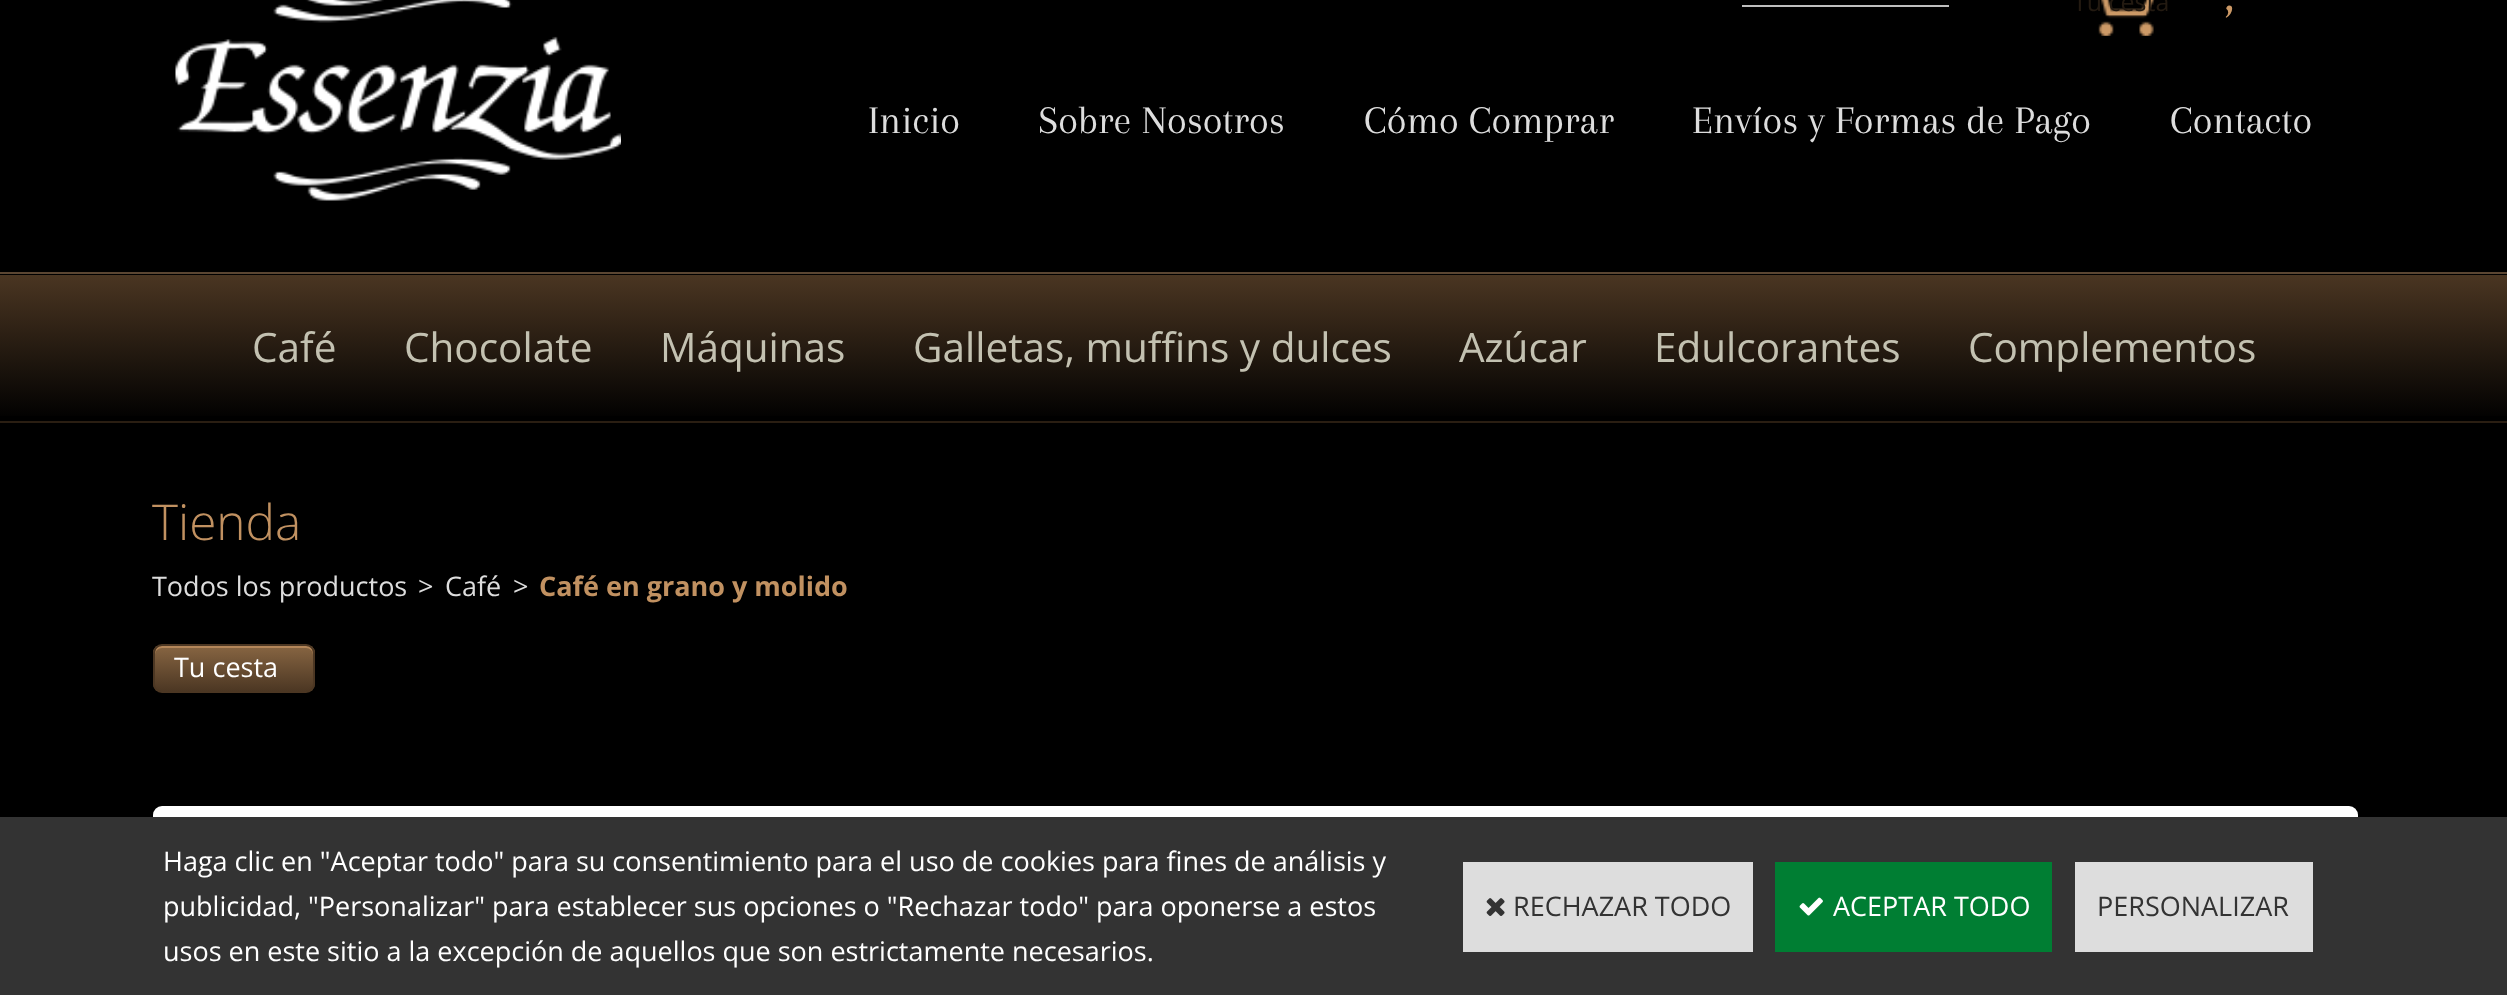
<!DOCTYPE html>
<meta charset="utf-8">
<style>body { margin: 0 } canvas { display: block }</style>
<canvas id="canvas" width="2507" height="995"></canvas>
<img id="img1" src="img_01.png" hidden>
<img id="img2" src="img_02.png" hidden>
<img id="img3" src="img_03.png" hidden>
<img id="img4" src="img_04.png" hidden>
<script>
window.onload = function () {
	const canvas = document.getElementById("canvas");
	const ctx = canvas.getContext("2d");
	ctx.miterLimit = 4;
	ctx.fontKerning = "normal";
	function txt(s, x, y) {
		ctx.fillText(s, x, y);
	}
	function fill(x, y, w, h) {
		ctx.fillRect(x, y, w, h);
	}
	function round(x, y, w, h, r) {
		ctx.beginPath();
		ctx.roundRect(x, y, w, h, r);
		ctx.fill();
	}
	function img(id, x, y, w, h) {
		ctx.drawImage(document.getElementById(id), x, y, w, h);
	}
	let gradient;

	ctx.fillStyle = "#000000";
	fill(0, 0, 2507, 995);
	ctx.fillStyle = "#BEBEBE";
	fill(1742, 5, 207, 2);
	img("img1", 175, 0, 446, 201);
	img("img2", 2098, 0, 57, 36);
	gradient = ctx.createLinearGradient(1254, 274, 1254, 421);
	gradient.addColorStop(0, "#4B3622");
	gradient.addColorStop(1, "#000000");
	ctx.fillStyle = gradient;
	fill(0, 275, 2507, 141);
	ctx.fillStyle = "#5B4632";
	fill(0, 272, 2507, 2);
	ctx.fillStyle = "#2A1E12";
	fill(0, 421, 2507, 2);
	ctx.save();
	ctx.beginPath();
	ctx.roundRect(153, 644, 162, 49, 9);
	ctx.clip();
	gradient = ctx.createLinearGradient(234, 646, 234, 691);
	gradient.addColorStop(0, "#876542");
	gradient.addColorStop(1, "#4C3723");
	ctx.fillStyle = gradient;
	fill(153, 646, 162, 45);
	ctx.restore();
	ctx.fillStyle = "#B4875A";
	ctx.beginPath();
	ctx.moveTo(162, 648);
	ctx.lineTo(306, 648);
	ctx.bezierCurveTo(310, 648, 313, 651, 313, 655);
	ctx.lineTo(313, 653);
	ctx.bezierCurveTo(313, 649, 310, 646, 306, 646);
	ctx.lineTo(162, 646);
	ctx.bezierCurveTo(158, 646, 155, 649, 155, 653);
	ctx.lineTo(155, 655);
	ctx.bezierCurveTo(155, 651, 158, 648, 162, 648);
	ctx.closePath();
	ctx.fill();
	ctx.beginPath();
	ctx.roundRect(154, 645, 160, 47, 8);
	ctx.strokeStyle = "#4C3723";
	ctx.lineWidth = 2;
	ctx.stroke();
	ctx.fillStyle = "#FFFFFF";
	round(153, 806, 2205, 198, 9);
	ctx.fillStyle = "#333333";
	fill(0, 817, 2507, 178);
	ctx.fillStyle = "#DDDDDD";
	fill(1463, 862, 290, 90);
	img("img3", 1486, 898, 19, 18);
	ctx.fillStyle = "#007E33";
	fill(1775, 862, 277, 90);
	img("img4", 1799, 897, 24, 19);
	ctx.fillStyle = "#DDDDDD";
	fill(2075, 862, 238, 90);
	ctx.font = "25px Open Sans";
	ctx.fillStyle = "#231A11";
	txt("Tu cesta", 2073, 11);
	ctx.font = "54px Arapey";
	ctx.fillStyle = "#CC9966";
	txt(",", 2224, 11);
	ctx.font = "40.5px Arapey";
	ctx.fillStyle = "#DDDDDD";
	txt("Inicio", 868, 133);
	txt("Sobre Nosotros", 1038, 133);
	txt("Cómo Comprar", 1364, 133);
	txt("Envíos y Formas de Pago", 1692, 133);
	txt("Contacto", 2170, 133);
	ctx.font = "40.5px Open Sans";
	ctx.fillStyle = "#C3C1B1";
	txt("Café", 252, 362);
	txt("Chocolate", 404, 362);
	txt("Máquinas", 660, 362);
	txt("Galletas, muffins y dulces", 913, 362);
	txt("Azúcar", 1459, 362);
	txt("Edulcorantes", 1654, 362);
	txt("Complementos", 1968, 362);
	ctx.font = "300 49.5px Open Sans";
	ctx.fillStyle = "#C19161";
	txt("Tienda", 152, 540);
	ctx.font = "27px Open Sans";
	ctx.fillStyle = "#DDDDDD";
	txt("Todos los productos", 152, 596);
	txt(">", 418, 596);
	txt("Café", 445, 596);
	txt(">", 513, 596);
	ctx.font = "bold 27px Open Sans";
	ctx.fillStyle = "#C19161";
	txt("Café en grano y molido", 539, 596);
	ctx.font = "27px Open Sans";
	ctx.fillStyle = "#FFFFFF";
	txt("Tu cesta", 174, 677);
	txt("Haga clic en \"Aceptar todo\" para su consentimiento para el uso de cookies para fines de análisis y", 163, 871);
	txt("publicidad, \"Personalizar\" para establecer sus opciones o \"Rechazar todo\" para oponerse a estos", 163, 916);
	txt("usos en este sitio a la excepción de aquellos que son estrictamente necesarios.", 163, 961);
	ctx.fillStyle = "#333333";
	txt("RECHAZAR TODO", 1513, 916);
	ctx.fillStyle = "#FFFFFF";
	txt("ACEPTAR TODO", 1833, 916);
	ctx.fillStyle = "#333333";
	txt("PERSONALIZAR", 2097, 916);
};
</script>
